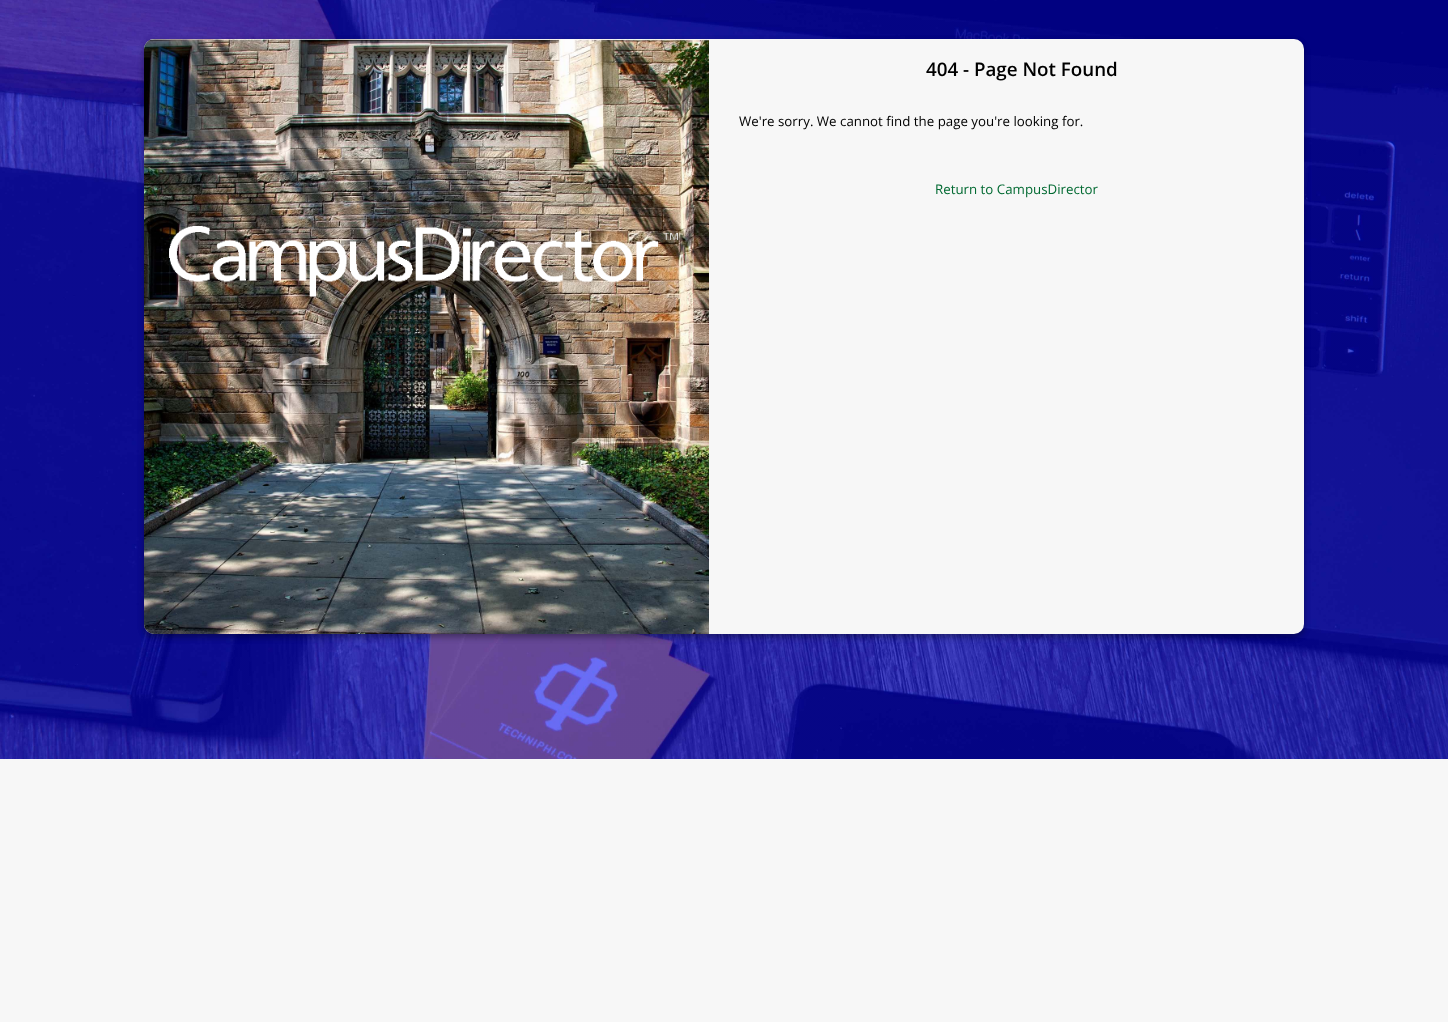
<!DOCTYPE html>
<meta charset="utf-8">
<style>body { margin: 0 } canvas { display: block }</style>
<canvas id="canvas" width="1448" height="1022"></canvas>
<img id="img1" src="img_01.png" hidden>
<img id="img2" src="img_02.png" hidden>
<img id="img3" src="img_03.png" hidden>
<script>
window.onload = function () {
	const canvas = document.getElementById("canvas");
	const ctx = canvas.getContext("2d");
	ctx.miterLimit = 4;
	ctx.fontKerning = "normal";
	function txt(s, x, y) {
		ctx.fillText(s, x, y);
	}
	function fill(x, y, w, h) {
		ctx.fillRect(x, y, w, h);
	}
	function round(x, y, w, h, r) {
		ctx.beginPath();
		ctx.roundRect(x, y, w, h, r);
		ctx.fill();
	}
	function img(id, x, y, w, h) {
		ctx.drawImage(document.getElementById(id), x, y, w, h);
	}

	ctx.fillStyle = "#F7F7F7";
	fill(0, 0, 1448, 1022);
	img("img1", 0, 0, 1448, 759);
	ctx.fillStyle = "rgba(0, 0, 0, 0.23)";
	ctx.filter = "blur(3px)";
	ctx.beginPath();
	ctx.roundRect(144, 42, 1160, 595, 10);
	ctx.fill();
	ctx.filter = "none";
	ctx.fillStyle = "rgba(0, 0, 0, 0.16)";
	ctx.filter = "blur(3px)";
	ctx.beginPath();
	ctx.roundRect(144, 42, 1160, 595, 10);
	ctx.fill();
	ctx.filter = "none";
	ctx.fillStyle = "#F7F7F7";
	round(144, 39, 1160, 595, 10);
	img("img2", 144, 39, 565, 595);
	img("img3", 169, 225, 509, 72);
	ctx.font = "600 18.75px Open Sans";
	ctx.fillStyle = "#000000";
	txt("404 - Page Not Found", 926, 76);
	ctx.font = "13.3px Open Sans";
	txt("We're sorry. We cannot find the page you're looking for.", 739, 126);
	ctx.fillStyle = "#026A32";
	txt("Return to CampusDirector", 935, 194);
};
</script>
